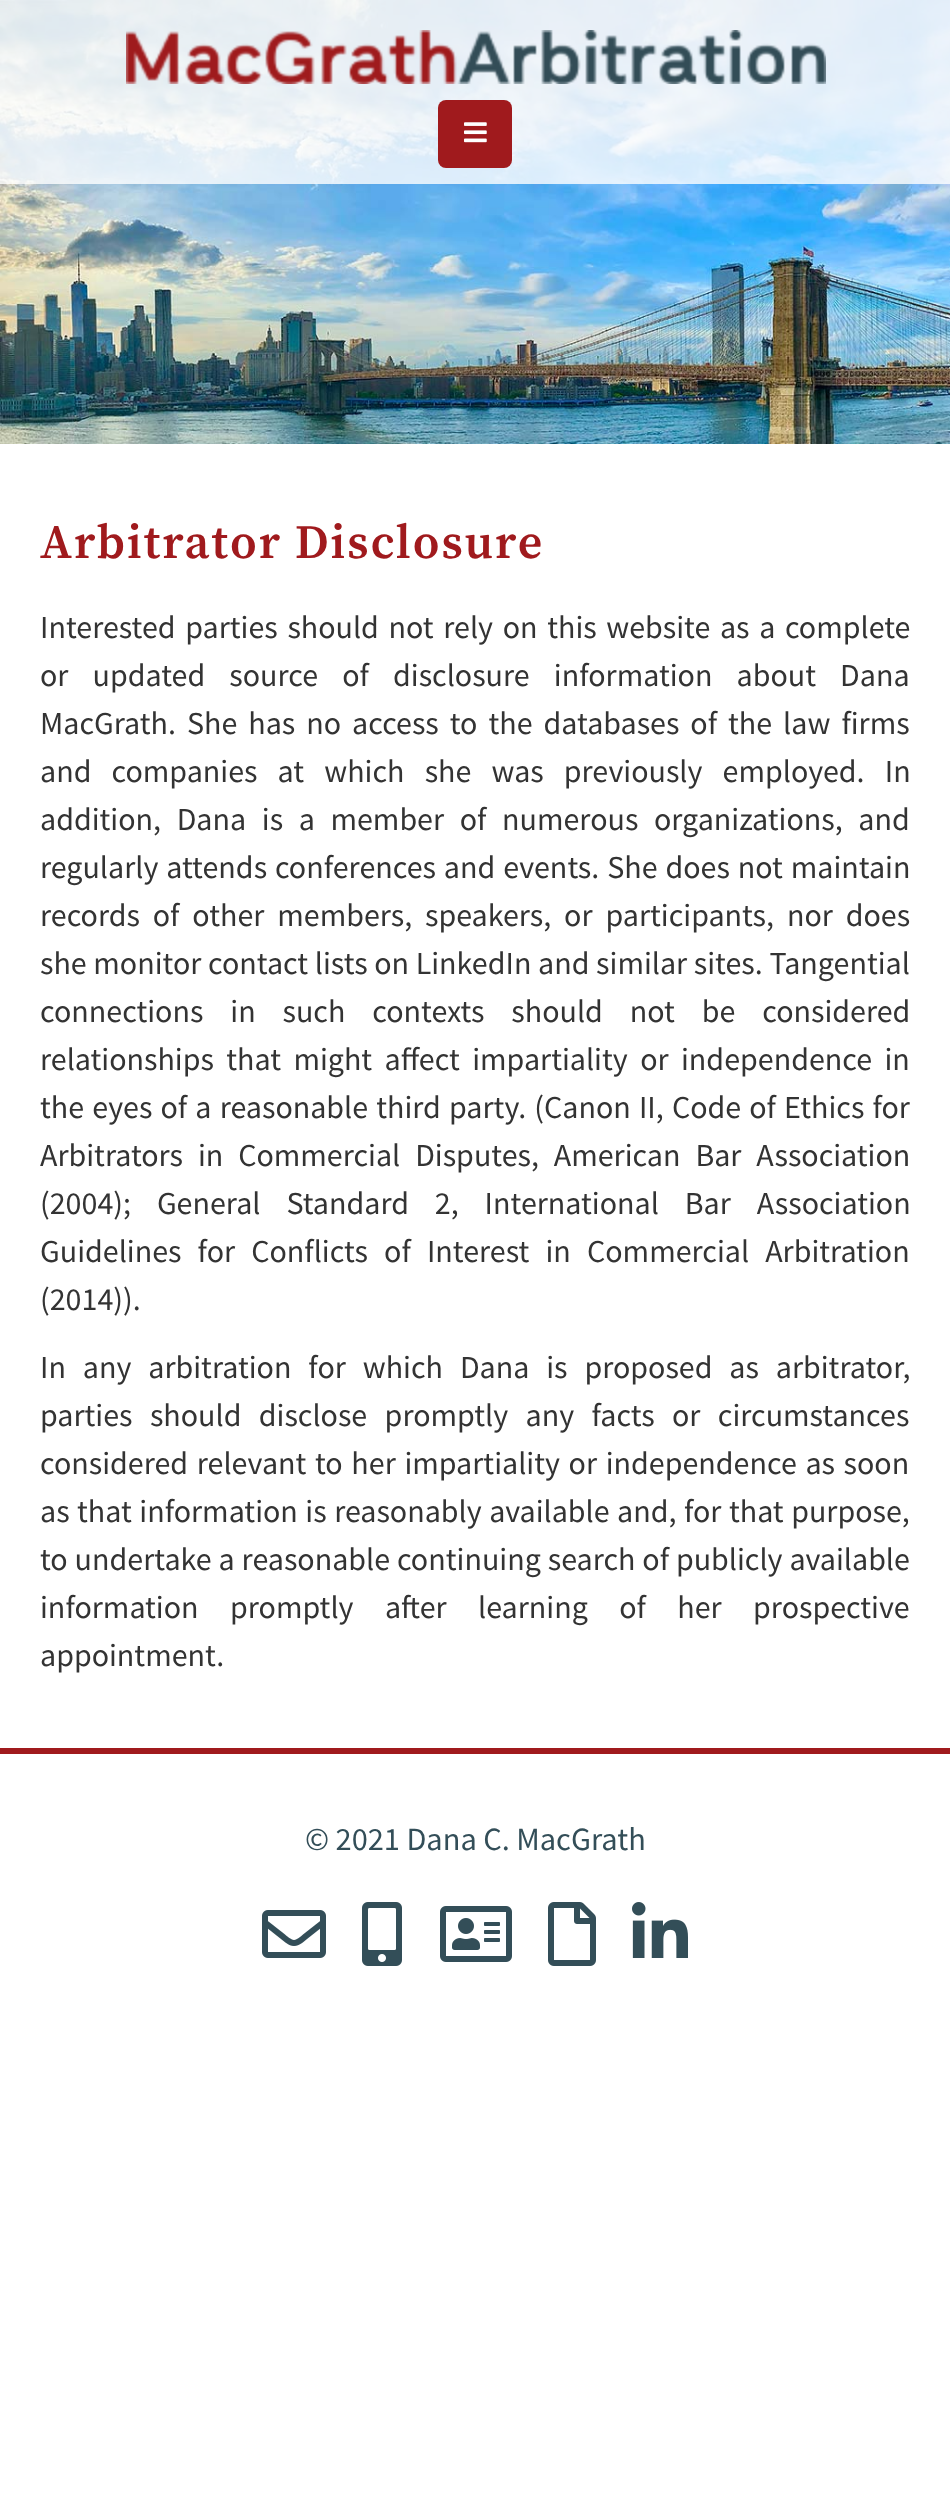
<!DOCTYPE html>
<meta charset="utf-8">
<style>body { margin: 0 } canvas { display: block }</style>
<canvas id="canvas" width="950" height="2496"></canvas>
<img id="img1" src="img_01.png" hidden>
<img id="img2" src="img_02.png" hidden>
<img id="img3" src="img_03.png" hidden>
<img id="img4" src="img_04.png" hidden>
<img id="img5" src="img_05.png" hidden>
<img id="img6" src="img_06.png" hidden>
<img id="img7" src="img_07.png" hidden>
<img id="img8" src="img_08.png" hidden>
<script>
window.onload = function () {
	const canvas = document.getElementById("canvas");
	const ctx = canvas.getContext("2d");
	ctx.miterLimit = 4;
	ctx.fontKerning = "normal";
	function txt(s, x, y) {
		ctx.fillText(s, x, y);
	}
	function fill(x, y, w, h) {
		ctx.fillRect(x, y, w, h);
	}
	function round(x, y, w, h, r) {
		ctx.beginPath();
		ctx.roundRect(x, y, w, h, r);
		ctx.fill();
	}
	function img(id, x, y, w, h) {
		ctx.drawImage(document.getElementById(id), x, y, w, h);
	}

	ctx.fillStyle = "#FFFFFF";
	fill(0, 0, 950, 2496);
	img("img1", 0, 0, 950, 444);
	ctx.fillStyle = "rgba(255, 255, 255, 0.8)";
	fill(0, 0, 950, 184);
	img("img2", 126, 30, 700, 54);
	ctx.fillStyle = "#A01A1D";
	round(438, 100, 74, 68, 8);
	img("img3", 464, 122, 23, 21);
	fill(0, 1748, 950, 6);
	img("img4", 262, 1910, 64, 48);
	img("img5", 362, 1902, 40, 64);
	img("img6", 440, 1906, 72, 56);
	img("img7", 548, 1902, 48, 64);
	img("img8", 632, 1902, 56, 56);
	ctx.letterSpacing = "2px";
	ctx.font = "600 48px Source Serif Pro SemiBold";
	txt("Arbitrator Disclosure", 40, 558);
	ctx.letterSpacing = "0px";
	ctx.wordSpacing = "3.25px";
	ctx.font = "32px Source Sans Pro";
	ctx.fillStyle = "#333333";
	txt("Interested parties should not rely on this website as a complete", 40, 638);
	ctx.wordSpacing = "17.75px";
	txt("or updated source of disclosure information about Dana", 40, 686);
	ctx.wordSpacing = "4.6px";
	txt("MacGrath. She has no access to the databases of the law firms", 40, 734);
	ctx.wordSpacing = "13.75px";
	txt("and companies at which she was previously employed. In", 40, 782);
	ctx.wordSpacing = "9.25px";
	txt("addition, Dana is a member of numerous organizations, and", 40, 830);
	ctx.wordSpacing = "1.5px";
	txt("regularly attends conferences and events. She does not maintain", 40, 878);
	ctx.wordSpacing = "6.5px";
	txt("records of other members, speakers, or participants, nor does", 40, 926);
	ctx.wordSpacing = "0.25px";
	txt("she monitor contact lists on LinkedIn and similar sites. Tangential", 40, 974);
	ctx.wordSpacing = "20.5px";
	txt("connections in such contexts should not be considered", 40, 1022);
	ctx.wordSpacing = "6px";
	txt("relationships that might affect impartiality or independence in", 40, 1070);
	ctx.wordSpacing = "1.75px";
	txt("the eyes of a reasonable third party. (Canon II, Code of Ethics for", 40, 1118);
	ctx.wordSpacing = "8.5px";
	txt("Arbitrators in Commercial Disputes, American Bar Association", 40, 1166);
	ctx.wordSpacing = "19.5px";
	txt("(2004); General Standard 2, International Bar Association", 40, 1214);
	ctx.wordSpacing = "9.75px";
	txt("Guidelines for Conflicts of Interest in Commercial Arbitration", 40, 1262);
	ctx.wordSpacing = "0px";
	txt("(2014)).", 40, 1310);
	ctx.wordSpacing = "10.5px";
	txt("In any arbitration for which Dana is proposed as arbitrator,", 40, 1378);
	ctx.wordSpacing = "11px";
	txt("parties should disclose promptly any facts or circumstances", 40, 1426);
	ctx.wordSpacing = "2.25px";
	txt("considered relevant to her impartiality or independence as soon", 40, 1474);
	ctx.wordSpacing = "1.1px";
	txt("as that information is reasonably available and, for that purpose,", 40, 1522);
	ctx.wordSpacing = "0.5px";
	txt("to undertake a reasonable continuing search of publicly available", 40, 1570);
	ctx.wordSpacing = "25px";
	txt("information promptly after learning of her prospective", 40, 1618);
	ctx.wordSpacing = "0px";
	txt("appointment.", 40, 1666);
	ctx.font = "32.4px Source Sans Pro";
	ctx.fillStyle = "#334E58";
	txt("© 2021 Dana C. MacGrath", 305, 1850);
};
</script>
